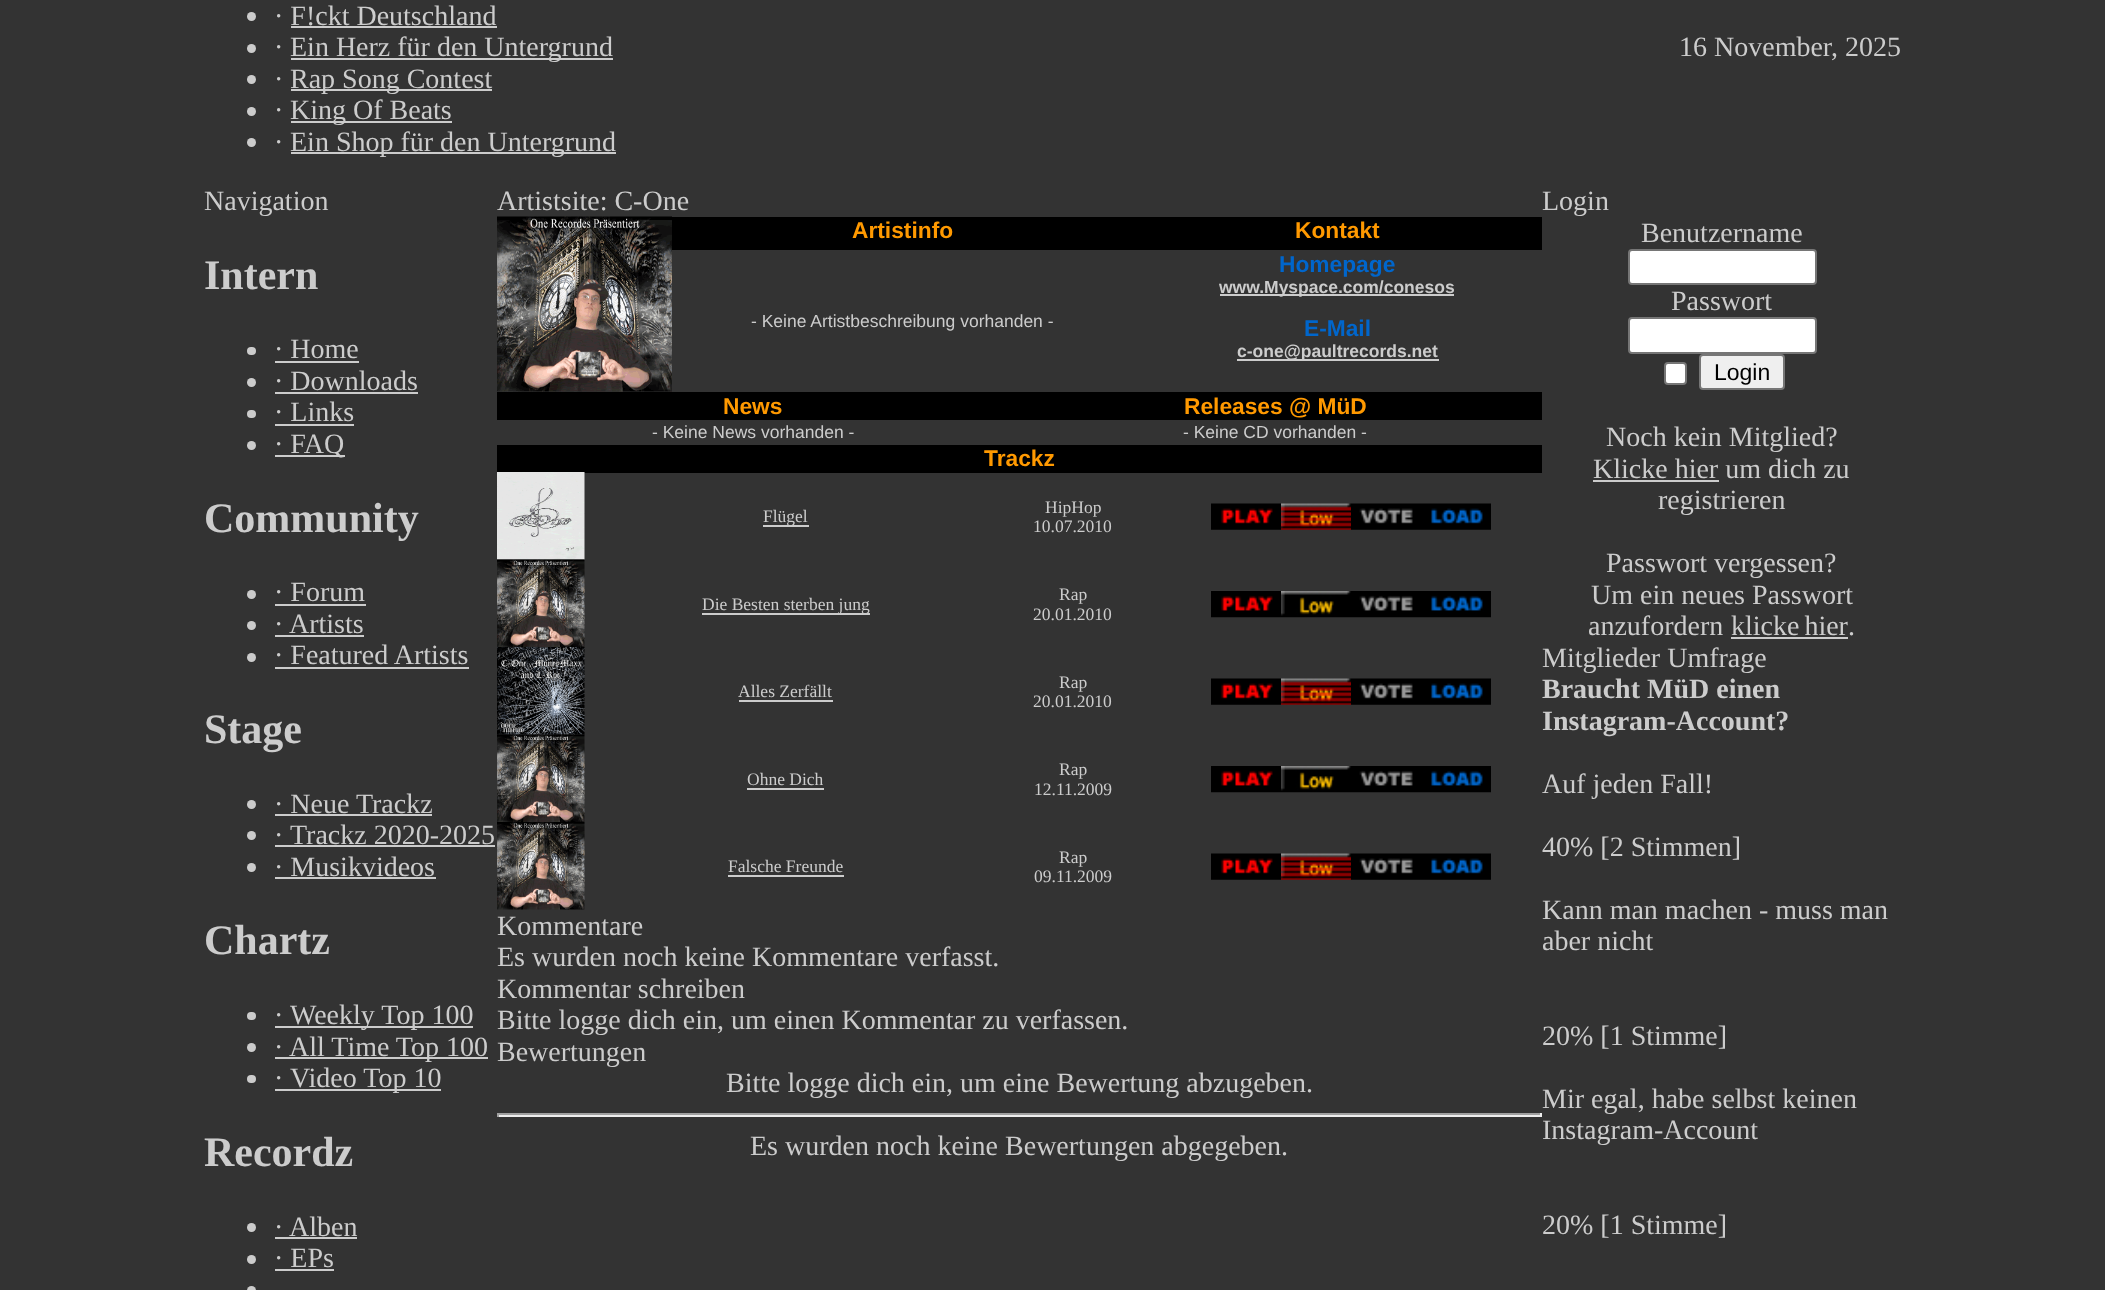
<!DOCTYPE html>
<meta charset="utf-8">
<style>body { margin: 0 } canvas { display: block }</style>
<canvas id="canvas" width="2105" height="1290"></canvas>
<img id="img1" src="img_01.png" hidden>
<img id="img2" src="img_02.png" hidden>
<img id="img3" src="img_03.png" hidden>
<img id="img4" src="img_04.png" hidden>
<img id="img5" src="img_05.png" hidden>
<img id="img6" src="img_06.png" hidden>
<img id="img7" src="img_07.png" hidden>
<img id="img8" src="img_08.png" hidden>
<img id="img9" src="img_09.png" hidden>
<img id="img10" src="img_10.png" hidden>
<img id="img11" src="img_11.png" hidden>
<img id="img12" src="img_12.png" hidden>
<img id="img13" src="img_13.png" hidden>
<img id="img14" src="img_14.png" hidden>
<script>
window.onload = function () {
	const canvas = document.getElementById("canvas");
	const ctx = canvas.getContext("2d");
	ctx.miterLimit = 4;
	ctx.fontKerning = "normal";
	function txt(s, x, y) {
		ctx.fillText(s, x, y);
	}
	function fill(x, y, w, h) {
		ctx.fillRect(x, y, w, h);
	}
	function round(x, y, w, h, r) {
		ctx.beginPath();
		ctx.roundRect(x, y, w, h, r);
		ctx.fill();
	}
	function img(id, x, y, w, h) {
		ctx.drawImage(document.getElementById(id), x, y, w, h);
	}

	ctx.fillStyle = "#333333";
	fill(0, 0, 2105, 1290);
	ctx.fillStyle = "#CCCCCC";
	ctx.beginPath();
	ctx.arc(251.5, 16.5, 4.5, 0, Math.PI * 2);
	ctx.fill();
	fill(291, 26, 206, 2);
	ctx.beginPath();
	ctx.arc(251.5, 48.5, 4.5, 0, Math.PI * 2);
	ctx.fill();
	fill(291, 58, 322, 2);
	ctx.beginPath();
	ctx.arc(251.5, 79.5, 4.5, 0, Math.PI * 2);
	ctx.fill();
	fill(291, 89, 201, 2);
	ctx.beginPath();
	ctx.arc(251.5, 111.5, 4.5, 0, Math.PI * 2);
	ctx.fill();
	fill(291, 121, 161, 2);
	ctx.beginPath();
	ctx.arc(251.5, 142.5, 4.5, 0, Math.PI * 2);
	ctx.fill();
	fill(291, 152, 325, 2);
	round(247, 347, 9, 8, 4);
	fill(275, 361, 84, 2);
	ctx.beginPath();
	ctx.arc(251.5, 382.5, 4.5, 0, Math.PI * 2);
	ctx.fill();
	fill(275, 392, 143, 2);
	round(247, 410, 9, 8, 4);
	fill(275, 424, 79, 2);
	ctx.beginPath();
	ctx.arc(251.5, 445.5, 4.5, 0, Math.PI * 2);
	ctx.fill();
	fill(275, 455, 70, 2);
	ctx.beginPath();
	ctx.arc(251.5, 594.5, 4.5, 0, Math.PI * 2);
	ctx.fill();
	fill(275, 604, 91, 2);
	ctx.beginPath();
	ctx.arc(251.5, 625.5, 4.5, 0, Math.PI * 2);
	ctx.fill();
	fill(275, 635, 89, 2);
	ctx.beginPath();
	ctx.arc(251.5, 657.5, 4.5, 0, Math.PI * 2);
	ctx.fill();
	fill(275, 667, 194, 2);
	ctx.beginPath();
	ctx.arc(251.5, 804.5, 4.5, 0, Math.PI * 2);
	ctx.fill();
	fill(275, 814, 157, 2);
	ctx.beginPath();
	ctx.arc(251.5, 835.5, 4.5, 0, Math.PI * 2);
	ctx.fill();
	fill(275, 845, 220, 2);
	ctx.beginPath();
	ctx.arc(251.5, 867.5, 4.5, 0, Math.PI * 2);
	ctx.fill();
	fill(275, 877, 161, 2);
	round(247, 1012, 9, 8, 4);
	fill(275, 1026, 198, 2);
	ctx.beginPath();
	ctx.arc(251.5, 1047.5, 4.5, 0, Math.PI * 2);
	ctx.fill();
	fill(275, 1057, 213, 2);
	round(247, 1075, 9, 8, 4);
	fill(275, 1089, 166, 2);
	ctx.beginPath();
	ctx.arc(251.5, 1227.5, 4.5, 0, Math.PI * 2);
	ctx.fill();
	fill(275, 1237, 82, 2);
	ctx.beginPath();
	ctx.arc(251.5, 1259.5, 4.5, 0, Math.PI * 2);
	ctx.fill();
	fill(275, 1269, 59, 2);
	ctx.beginPath();
	ctx.arc(251.5, 1290.5, 4.5, 0, Math.PI * 2);
	ctx.fill();
	img("img1", 497, 216, 175, 176);
	ctx.fillStyle = "#000000";
	fill(672, 217, 870, 33);
	ctx.fillStyle = "#CCCCCC";
	fill(1220, 294, 234, 2);
	fill(1237, 359, 202, 2);
	ctx.fillStyle = "#000000";
	fill(497, 392, 1045, 28);
	fill(497, 445, 1045, 28);
	img("img2", 497, 472, 88, 88);
	ctx.fillStyle = "#CCCCCC";
	fill(763, 525, 46, 2);
	img("img3", 1211, 503, 70, 27);
	img("img4", 1281, 503, 70, 27);
	img("img5", 1351, 503, 70, 27);
	img("img6", 1421, 503, 70, 27);
	img("img7", 497, 559, 88, 88);
	fill(702, 613, 168, 2);
	img("img8", 1211, 591, 70, 27);
	img("img9", 1281, 591, 70, 27);
	img("img10", 1351, 591, 70, 27);
	img("img11", 1421, 591, 70, 27);
	img("img12", 497, 647, 88, 88);
	fill(739, 700, 94, 2);
	img("img3", 1211, 678, 70, 27);
	img("img4", 1281, 678, 70, 27);
	img("img5", 1351, 678, 70, 27);
	img("img6", 1421, 678, 70, 27);
	img("img13", 497, 734, 88, 88);
	fill(747, 788, 77, 2);
	img("img8", 1211, 766, 70, 27);
	img("img9", 1281, 766, 70, 27);
	img("img10", 1351, 766, 70, 27);
	img("img11", 1421, 766, 70, 27);
	img("img14", 497, 822, 88, 88);
	fill(728, 875, 116, 2);
	img("img3", 1211, 853, 70, 27);
	img("img4", 1281, 853, 70, 27);
	img("img5", 1351, 853, 70, 27);
	img("img6", 1421, 853, 70, 27);
	ctx.fillStyle = "#9F9F9F";
	fill(497, 1113, 1045, 2);
	ctx.fillStyle = "#EEEEEE";
	fill(1540, 1113, 2, 4);
	fill(497, 1115, 1045, 2);
	ctx.fillStyle = "#9F9F9F";
	fill(497, 1113, 2, 4);
	ctx.fillStyle = "#FFFFFF";
	ctx.beginPath();
	ctx.roundRect(1629, 250, 187, 34, 3);
	ctx.fill();
	ctx.strokeStyle = "#767676";
	ctx.lineWidth = 2;
	ctx.stroke();
	ctx.beginPath();
	ctx.roundRect(1629, 318, 187, 35, 3);
	ctx.fill();
	ctx.stroke();
	ctx.beginPath();
	ctx.roundRect(1665, 363, 21, 21, 3);
	ctx.fill();
	ctx.stroke();
	ctx.fillStyle = "#EFEFEF";
	ctx.beginPath();
	ctx.roundRect(1700, 355, 84, 34, 3);
	ctx.fill();
	ctx.stroke();
	ctx.fillStyle = "#CCCCCC";
	fill(1593, 480, 126, 2);
	fill(1731, 637, 117, 2);
	ctx.font = "28px Liberation Serif";
	txt("· F!ckt Deutschland", 274, 25);
	txt("·", 274, 56);
	txt("Ein Herz für den Untergrund", 290, 56);
	txt("·", 274, 88);
	txt("Rap Song Contest", 290, 88);
	txt("·", 274, 119);
	txt("King Of Beats", 290, 119);
	txt("·", 274, 151);
	txt("Ein Shop für den Untergrund", 290, 151);
	txt("16 November, 2025", 1679, 56);
	txt("Navigation", 204, 210);
	ctx.font = "bold 42px Liberation Serif";
	txt("Intern", 204, 289);
	ctx.font = "28px Liberation Serif";
	txt("· Home", 274, 358);
	txt("· Downloads", 274, 390);
	txt("· Links", 274, 421);
	txt("· FAQ", 274, 453);
	ctx.font = "bold 42px Liberation Serif";
	txt("Community", 204, 532);
	ctx.font = "28px Liberation Serif";
	txt("· Forum", 274, 601);
	txt("·", 274, 633);
	txt("Artists", 289, 633);
	txt("· Featured Artists", 274, 664);
	ctx.font = "bold 42px Liberation Serif";
	txt("Stage", 204, 743);
	ctx.font = "28px Liberation Serif";
	txt("· Neue Trackz", 274, 813);
	txt("·", 274, 844);
	txt("Trackz 2020-2025", 290, 844);
	txt("· Musikvideos", 274, 876);
	ctx.font = "bold 42px Liberation Serif";
	txt("Chartz", 204, 954);
	ctx.font = "28px Liberation Serif";
	txt("·", 274, 1024);
	txt("Weekly Top 100", 290, 1024);
	txt("·", 274, 1056);
	txt("All Time Top 100", 289, 1056);
	txt("·", 274, 1087);
	txt("Video Top 10", 290, 1087);
	ctx.font = "bold 42px Liberation Serif";
	txt("Recordz", 204, 1166);
	ctx.font = "28px Liberation Serif";
	txt("·", 274, 1236);
	txt("Alben", 289, 1236);
	txt("· EPs", 274, 1267);
	txt("Artistsite: C-One", 497, 210);
	ctx.font = "bold 22.75px Liberation Sans";
	ctx.fillStyle = "#FF9900";
	txt("Artistinfo", 852, 238);
	txt("Kontakt", 1295, 238);
	ctx.font = "17.5px Liberation Sans";
	ctx.fillStyle = "#CCCCCC";
	txt("- Keine Artistbeschreibung vorhanden -", 751, 327);
	ctx.font = "bold 22.75px Liberation Sans";
	ctx.fillStyle = "#0066CC";
	txt("Homepage", 1279, 272);
	ctx.font = "bold 17.5px Liberation Sans";
	ctx.fillStyle = "#CCCCCC";
	txt("www.Myspace.com/conesos", 1219, 293);
	ctx.font = "bold 22.75px Liberation Sans";
	ctx.fillStyle = "#0066CC";
	txt("E-Mail", 1304, 336);
	ctx.font = "bold 17.5px Liberation Sans";
	ctx.fillStyle = "#CCCCCC";
	txt("c-one@paultrecords.net", 1237, 357);
	ctx.font = "bold 22.75px Liberation Sans";
	ctx.fillStyle = "#FF9900";
	txt("News", 723, 414);
	txt("Releases @ MüD", 1184, 414);
	ctx.font = "17.5px Liberation Sans";
	ctx.fillStyle = "#CCCCCC";
	txt("- Keine News vorhanden -", 652, 438);
	txt("- Keine CD vorhanden -", 1183, 438);
	ctx.font = "bold 22.75px Liberation Sans";
	ctx.fillStyle = "#FF9900";
	txt("Trackz", 984, 466);
	ctx.font = "17.5px Liberation Serif";
	ctx.fillStyle = "#CCCCCC";
	txt("Flügel", 763, 522);
	txt("HipHop", 1045, 513);
	txt("10.07.2010", 1033, 532);
	txt("Die Besten sterben jung", 702, 610);
	txt("Rap", 1059, 600);
	txt("20.01.2010", 1033, 620);
	txt("Alles Zerfällt", 738, 697);
	txt("Rap", 1059, 688);
	txt("20.01.2010", 1033, 707);
	txt("Ohne Dich", 747, 785);
	txt("Rap", 1059, 775);
	txt("12.11.2009", 1034, 795);
	txt("Falsche Freunde", 728, 872);
	txt("Rap", 1059, 863);
	txt("09.11.2009", 1034, 882);
	ctx.font = "28px Liberation Serif";
	txt("Kommentare", 497, 935);
	txt("Es wurden noch keine Kommentare verfasst.", 497, 966);
	txt("Kommentar schreiben", 497, 998);
	txt("Bitte logge dich ein, um einen Kommentar zu verfassen.", 497, 1029);
	txt("Bewertungen", 497, 1061);
	txt("Bitte logge dich ein, um eine Bewertung abzugeben.", 726, 1092);
	txt("Es wurden noch keine Bewertungen abgegeben.", 750, 1155);
	txt("Login", 1542, 210);
	txt("Benutzername", 1641, 242);
	txt("Passwort", 1671, 310);
	ctx.font = "23px Liberation Sans";
	ctx.fillStyle = "#000000";
	txt("Login", 1714, 380);
	ctx.font = "28px Liberation Serif";
	ctx.fillStyle = "#CCCCCC";
	txt("Noch kein Mitglied?", 1606, 446);
	txt("Klicke hier um dich zu", 1593, 478);
	txt("registrieren", 1658, 509);
	txt("Passwort vergessen?", 1606, 572);
	txt("Um ein neues Passwort", 1591, 604);
	txt("anzufordern", 1588, 635);
	ctx.wordSpacing = "-2px";
	txt("klicke hier", 1731, 635);
	ctx.wordSpacing = "0px";
	txt(".", 1848, 635);
	txt("Mitglieder Umfrage", 1542, 667);
	ctx.font = "bold 28px Liberation Serif";
	txt("Braucht MüD einen", 1542, 698);
	txt("Instagram-Account?", 1542, 730);
	ctx.font = "28px Liberation Serif";
	txt("Auf jeden Fall!", 1542, 793);
	txt("40% [2 Stimmen]", 1542, 856);
	txt("Kann man machen - muss man", 1542, 919);
	txt("aber nicht", 1542, 950);
	txt("20% [1 Stimme]", 1542, 1045);
	txt("Mir egal, habe selbst keinen", 1542, 1108);
	txt("Instagram-Account", 1542, 1139);
	txt("20% [1 Stimme]", 1542, 1234);
};
</script>
